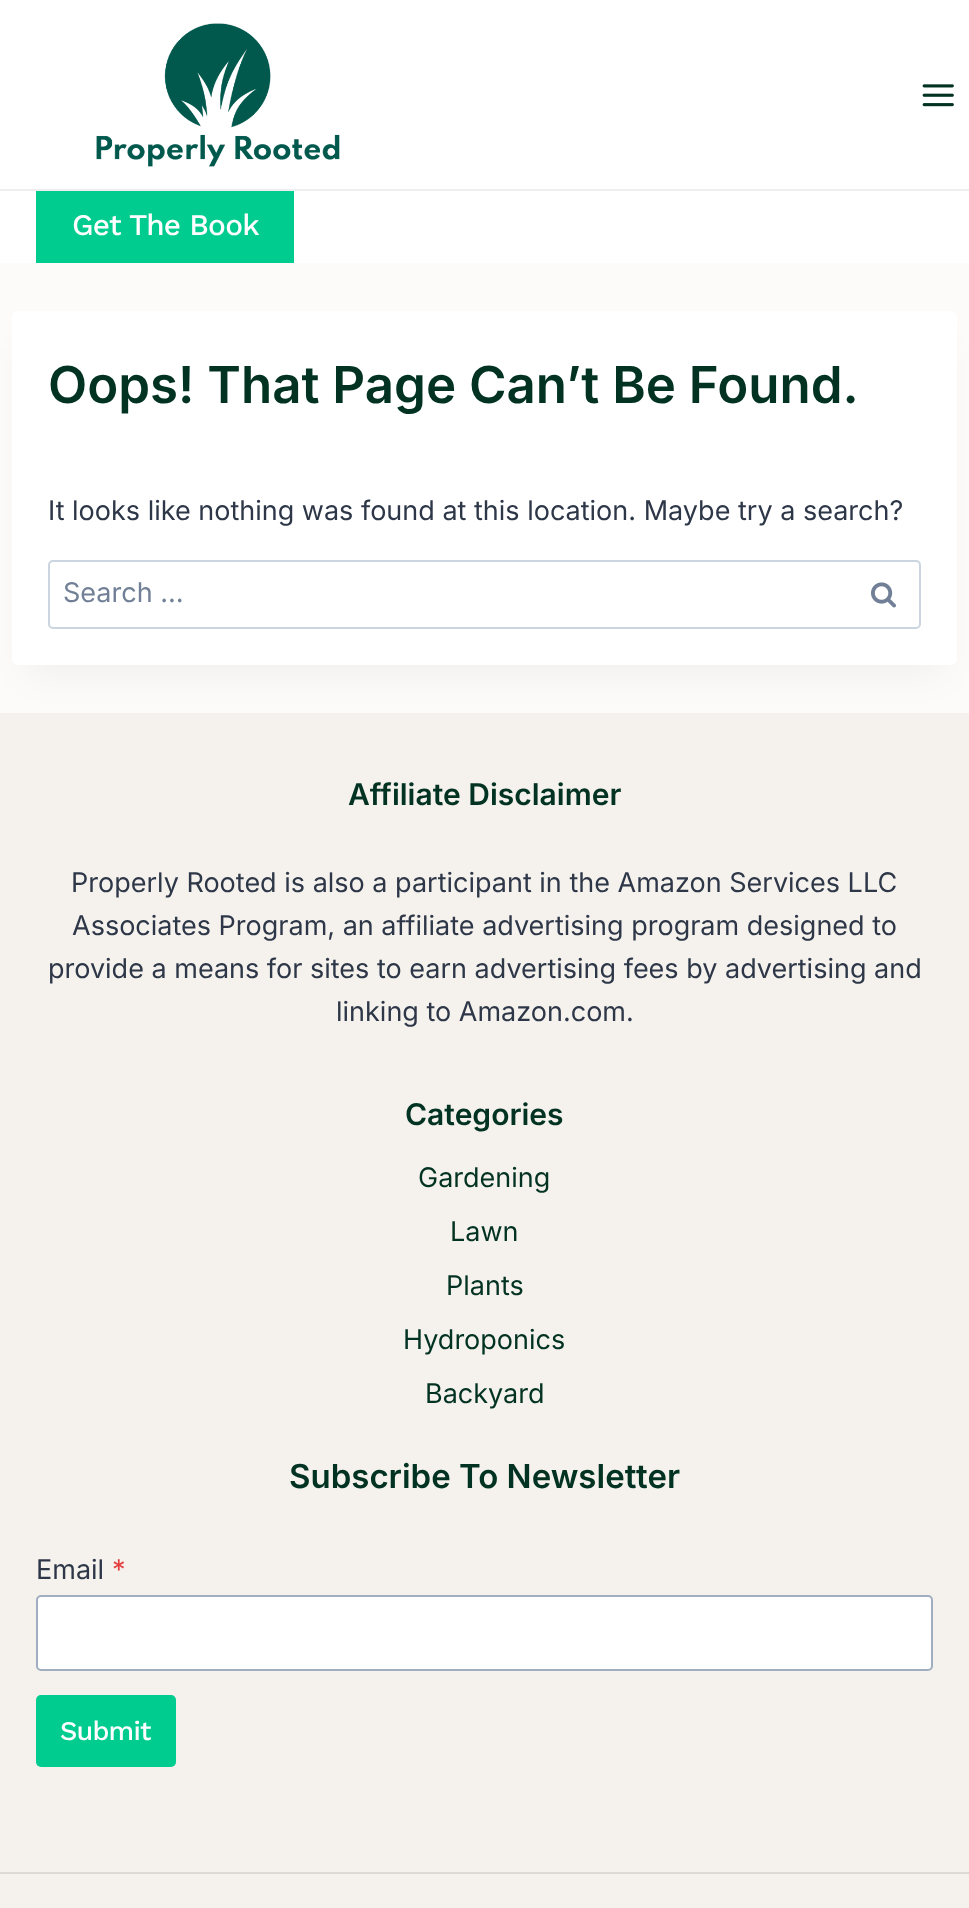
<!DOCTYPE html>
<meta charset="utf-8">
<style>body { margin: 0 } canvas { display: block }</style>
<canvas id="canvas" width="969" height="1908"></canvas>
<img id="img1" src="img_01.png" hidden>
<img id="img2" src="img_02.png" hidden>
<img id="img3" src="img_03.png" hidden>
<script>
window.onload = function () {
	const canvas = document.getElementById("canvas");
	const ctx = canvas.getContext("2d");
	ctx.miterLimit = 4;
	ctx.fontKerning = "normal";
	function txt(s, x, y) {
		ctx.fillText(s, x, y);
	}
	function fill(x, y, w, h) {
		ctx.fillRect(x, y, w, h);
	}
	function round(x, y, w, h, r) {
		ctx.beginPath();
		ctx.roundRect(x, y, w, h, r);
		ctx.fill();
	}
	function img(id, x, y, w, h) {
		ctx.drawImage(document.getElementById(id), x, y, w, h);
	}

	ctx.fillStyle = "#FCFBFA";
	fill(0, 0, 969, 1908);
	ctx.fillStyle = "#FFFFFF";
	fill(0, 0, 969, 263);
	ctx.fillStyle = "#EEEEEE";
	fill(0, 189, 969, 2);
	img("img1", 96, 23, 244, 144);
	img("img2", 922, 84, 32, 23);
	ctx.fillStyle = "#00CC90";
	fill(36, 191, 258, 72);
	ctx.fillStyle = "#F5F2ED";
	fill(0, 713, 969, 1195);
	ctx.fillStyle = "rgba(0, 0, 0, 0.05)";
	ctx.filter = "blur(19px)";
	ctx.beginPath();
	ctx.rect(27, 348, 915, 324);
	ctx.fill();
	ctx.filter = "none";
	ctx.fillStyle = "#FFFFFF";
	round(12, 311, 945, 354, 6);
	ctx.beginPath();
	ctx.roundRect(49, 561, 871, 67, 4);
	ctx.strokeStyle = "#CBD5E0";
	ctx.lineWidth = 2;
	ctx.stroke();
	img("img3", 871, 582, 25, 26);
	ctx.beginPath();
	ctx.roundRect(37, 1596, 895, 74, 4);
	ctx.fill();
	ctx.strokeStyle = "#A0AEC0";
	ctx.stroke();
	ctx.fillStyle = "#00CC90";
	round(36, 1695, 140, 72, 5);
	ctx.fillStyle = "#DDD9D3";
	fill(0, 1872, 969, 2);
	ctx.letterSpacing = "-0.75px";
	ctx.font = "500 29.75px Work Sans";
	ctx.fillStyle = "#FFFFFF";
	txt("Get The Book", 72, 235);
	ctx.letterSpacing = "0px";
	ctx.font = "600 51px Inter";
	ctx.fillStyle = "#013222";
	txt("Oops! That Page Can’t Be Found.", 48, 403);
	ctx.font = "27px Inter";
	ctx.fillStyle = "#2D3748";
	txt("It looks like nothing was found at this location. Maybe try a search?", 48, 520);
	ctx.fillStyle = "#718096";
	txt("Search …", 63, 602);
	ctx.font = "600 30px Inter";
	ctx.fillStyle = "#013222";
	txt("Affiliate Disclaimer", 348, 805);
	ctx.font = "27px Inter";
	ctx.fillStyle = "#2D3748";
	txt("Properly Rooted is also a participant in the Amazon Services LLC", 71, 892);
	txt("Associates Program, an affiliate advertising program designed to", 72, 935);
	txt("provide a means for sites to earn advertising fees by advertising and", 48, 978);
	txt("linking to Amazon.com.", 336, 1021);
	ctx.font = "600 30px Inter";
	ctx.fillStyle = "#013222";
	txt("Categories", 405, 1125);
	ctx.font = "27px Inter";
	txt("Gardening", 418, 1187);
	txt("Lawn", 450, 1241);
	txt("Plants", 446, 1295);
	txt("Hydroponics", 403, 1349);
	txt("Backyard", 425, 1403);
	ctx.font = "600 33px Inter";
	txt("Subscribe To Newsletter", 289, 1488);
	ctx.font = "27px Inter";
	ctx.fillStyle = "#2D3748";
	txt("Email", 36, 1579);
	ctx.fillStyle = "#E53E3E";
	txt("*", 112, 1579);
	ctx.letterSpacing = "-0.75px";
	ctx.font = "500 27px Work Sans";
	ctx.fillStyle = "#FFFFFF";
	txt("Submit", 60, 1740);
};
</script>
